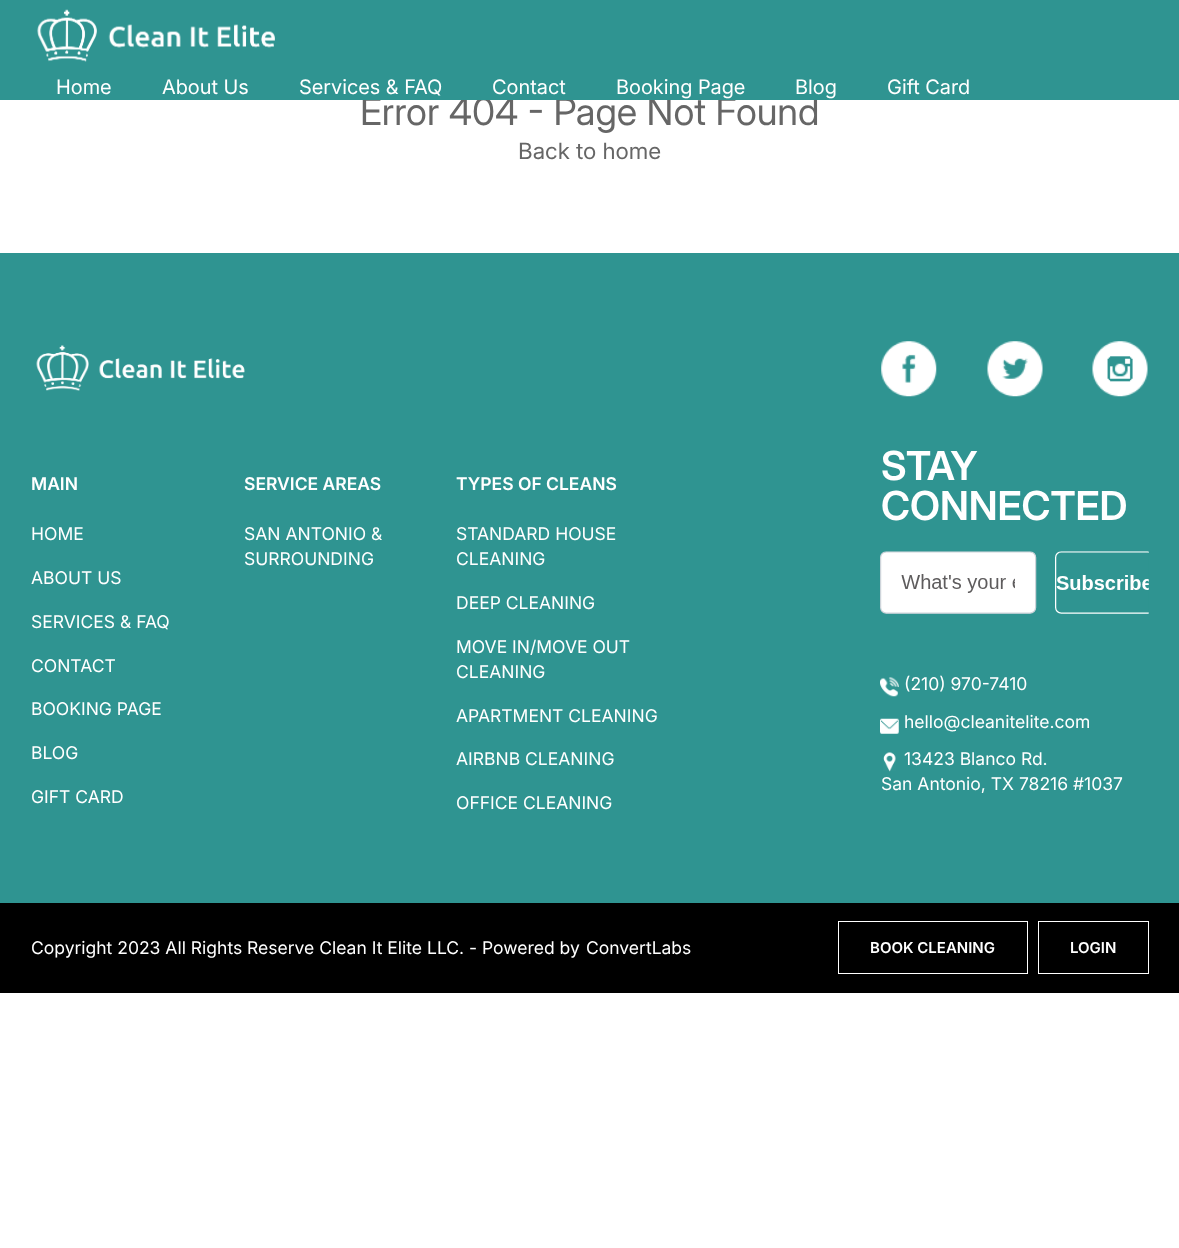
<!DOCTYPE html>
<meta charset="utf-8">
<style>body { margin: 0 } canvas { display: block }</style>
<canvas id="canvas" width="1179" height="1248"></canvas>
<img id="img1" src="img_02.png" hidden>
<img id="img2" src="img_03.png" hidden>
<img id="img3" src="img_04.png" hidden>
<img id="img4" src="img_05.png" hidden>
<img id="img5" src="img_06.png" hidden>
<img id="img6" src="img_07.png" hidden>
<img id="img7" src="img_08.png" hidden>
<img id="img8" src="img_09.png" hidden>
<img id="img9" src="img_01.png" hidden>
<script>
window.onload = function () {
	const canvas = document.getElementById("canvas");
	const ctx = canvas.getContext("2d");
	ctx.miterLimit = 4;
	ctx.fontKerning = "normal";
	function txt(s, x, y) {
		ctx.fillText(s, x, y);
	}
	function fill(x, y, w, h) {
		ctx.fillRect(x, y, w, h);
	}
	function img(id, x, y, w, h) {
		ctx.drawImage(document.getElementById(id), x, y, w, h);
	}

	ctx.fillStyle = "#FFFFFF";
	fill(0, 0, 1179, 1248);
	ctx.fillStyle = "#2F9491";
	fill(0, 253, 1179, 650);
	img("img1", 36, 345, 209, 46);
	img("img2", 881, 341, 56, 56);
	img("img3", 987, 341, 56, 56);
	img("img4", 1092, 341, 56, 56);
	img("img5", 880, 551, 269, 63);
	img("img6", 880, 677, 19, 20);
	img("img7", 880, 718, 19, 16);
	img("img8", 883, 752, 13, 20);
	ctx.fillStyle = "#000000";
	fill(0, 903, 1179, 90);
	ctx.strokeStyle = "#FFFFFF";
	ctx.strokeRect(838.5, 921.5, 189, 52);
	ctx.strokeRect(1038.5, 921.5, 110, 52);
	ctx.font = "37.5px Inter";
	ctx.fillStyle = "#666666";
	txt("Error 404 - Page Not Found", 360, 125);
	ctx.fillStyle = "#2F9491";
	fill(0, 0, 1179, 100);
	ctx.font = "20px 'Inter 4'";
	ctx.fillStyle = "#FFFFFF";
	txt("Gift Card", 887, 94);
	txt("Blog", 795, 94);
	txt("Booking Page", 616, 94);
	txt("Contact", 492, 94);
	txt("Services & FAQ", 299, 94);
	txt("About Us", 162, 94);
	txt("Home", 56, 94);
	img("img9", 37, 9, 238, 53);
	ctx.font = "22.5px 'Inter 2'";
	ctx.fillStyle = "#666666";
	txt("Back to home", 518, 159);
	ctx.font = "600 17.5px Inter";
	ctx.fillStyle = "#FFFFFF";
	txt("MAIN", 31, 490);
	ctx.font = "17.5px 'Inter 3'";
	txt("HOME", 31, 540);
	txt("ABOUT US", 31, 584);
	txt("SERVICES & FAQ", 31, 628);
	txt("CONTACT", 31, 672);
	txt("BOOKING PAGE", 31, 715);
	txt("BLOG", 31, 759);
	txt("GIFT CARD", 31, 803);
	ctx.font = "600 17.5px Inter";
	txt("SERVICE AREAS", 244, 490);
	ctx.font = "17.5px 'Inter 3'";
	txt("SAN ANTONIO &", 244, 540);
	txt("SURROUNDING", 244, 565);
	ctx.font = "600 17.5px Inter";
	txt("TYPES OF CLEANS", 456, 490);
	ctx.font = "17.5px 'Inter 3'";
	txt("STANDARD HOUSE", 456, 540);
	txt("CLEANING", 456, 565);
	txt("DEEP CLEANING", 456, 609);
	txt("MOVE IN/MOVE OUT", 456, 653);
	txt("CLEANING", 456, 678);
	txt("APARTMENT CLEANING", 456, 722);
	txt("AIRBNB CLEANING", 456, 765);
	txt("OFFICE CLEANING", 456, 809);
	ctx.font = "600 40px 'Inter 2'";
	txt("STAY", 881, 480);
	txt("CONNECTED", 881, 520);
	ctx.font = "17.5px 'Inter 3'";
	txt("(210) 970-7410", 904, 690);
	txt("hello@cleanitelite.com", 904, 728);
	txt("13423 Blanco Rd.", 904, 765);
	txt("San Antonio, TX 78216 #1037", 881, 790);
	txt("Copyright 2023 All Rights Reserve Clean It Elite LLC. - Powered by", 31, 954);
	txt("ConvertLabs", 586, 954);
	ctx.font = "600 15px Inter";
	txt("BOOK CLEANING", 870, 953);
	txt("LOGIN", 1070, 953);
};
</script>
